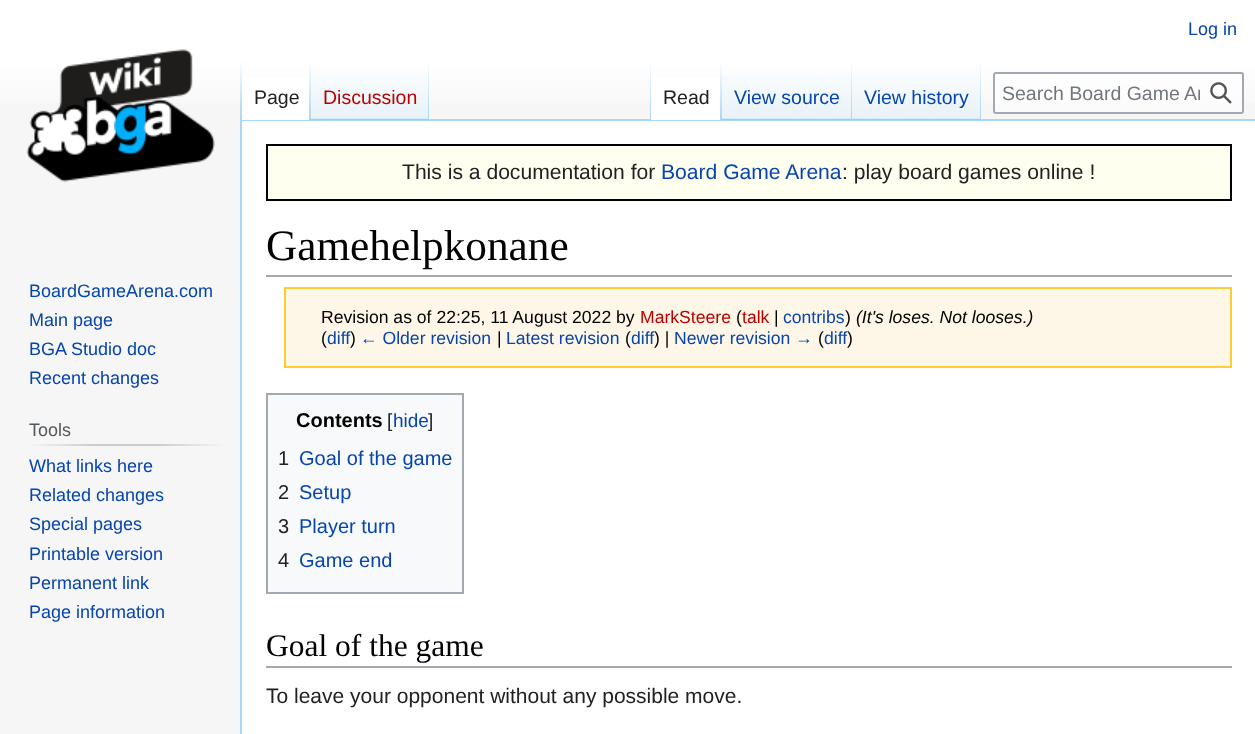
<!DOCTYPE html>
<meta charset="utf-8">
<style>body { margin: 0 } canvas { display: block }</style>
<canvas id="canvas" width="1255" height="734"></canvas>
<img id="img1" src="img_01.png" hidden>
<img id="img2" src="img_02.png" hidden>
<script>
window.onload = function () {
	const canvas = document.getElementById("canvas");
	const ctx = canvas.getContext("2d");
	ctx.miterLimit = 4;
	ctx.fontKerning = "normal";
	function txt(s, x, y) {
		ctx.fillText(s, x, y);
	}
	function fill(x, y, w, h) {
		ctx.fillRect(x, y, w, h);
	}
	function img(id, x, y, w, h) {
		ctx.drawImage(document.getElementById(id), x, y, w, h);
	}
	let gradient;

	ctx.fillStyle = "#F6F6F6";
	fill(0, 0, 1255, 734);
	gradient = ctx.createLinearGradient(628, 0, 628, 120);
	gradient.addColorStop(0.5, "#FFFFFF");
	gradient.addColorStop(1, "#F6F6F6");
	ctx.fillStyle = gradient;
	fill(0, 0, 1255, 103);
	ctx.fillStyle = "#A7D7F9";
	fill(240, 119, 1015, 2);
	fill(240, 119, 2, 615);
	gradient = ctx.createLinearGradient(241, 60, 241, 120);
	gradient.addColorStop(0, "rgba(167, 215, 249, 0)");
	gradient.addColorStop(1, "#A7D7F9");
	ctx.fillStyle = gradient;
	fill(240, 60, 2, 60);
	ctx.fillStyle = "#FFFFFF";
	fill(242, 77, 67, 43);
	gradient = ctx.createLinearGradient(310, 60, 310, 120);
	gradient.addColorStop(0, "#FFFFFF");
	gradient.addColorStop(1, "#A7D7F9");
	ctx.fillStyle = gradient;
	fill(309, 60, 2, 60);
	gradient = ctx.createLinearGradient(370, 120, 370, 60);
	gradient.addColorStop(0, "#77C1F6");
	gradient.addColorStop(0.03, "#E8F2F8");
	gradient.addColorStop(1, "#FFFFFF");
	ctx.fillStyle = gradient;
	fill(311, 69, 118, 51);
	gradient = ctx.createLinearGradient(428, 60, 428, 120);
	gradient.addColorStop(0, "rgba(167, 215, 249, 0)");
	gradient.addColorStop(1, "#A7D7F9");
	ctx.fillStyle = gradient;
	fill(428, 60, 1, 60);
	gradient = ctx.createLinearGradient(650, 60, 650, 120);
	gradient.addColorStop(0, "rgba(167, 215, 249, 0)");
	gradient.addColorStop(1, "#A7D7F9");
	ctx.fillStyle = gradient;
	fill(650, 60, 1, 60);
	ctx.fillStyle = "#FFFFFF";
	fill(651, 77, 69, 43);
	gradient = ctx.createLinearGradient(721, 60, 721, 120);
	gradient.addColorStop(0, "#FFFFFF");
	gradient.addColorStop(1, "#A7D7F9");
	ctx.fillStyle = gradient;
	fill(720, 60, 2, 60);
	gradient = ctx.createLinearGradient(787, 120, 787, 60);
	gradient.addColorStop(0, "#77C1F6");
	gradient.addColorStop(0.03, "#E8F2F8");
	gradient.addColorStop(1, "#FFFFFF");
	ctx.fillStyle = gradient;
	fill(722, 69, 130, 51);
	gradient = ctx.createLinearGradient(851, 60, 851, 120);
	gradient.addColorStop(0, "rgba(167, 215, 249, 0)");
	gradient.addColorStop(1, "#A7D7F9");
	ctx.fillStyle = gradient;
	fill(851, 60, 1, 60);
	gradient = ctx.createLinearGradient(917, 120, 917, 60);
	gradient.addColorStop(0, "#77C1F6");
	gradient.addColorStop(0.03, "#E8F2F8");
	gradient.addColorStop(1, "#FFFFFF");
	ctx.fillStyle = gradient;
	fill(852, 69, 129, 51);
	gradient = ctx.createLinearGradient(980, 60, 980, 120);
	gradient.addColorStop(0, "rgba(167, 215, 249, 0)");
	gradient.addColorStop(1, "#A7D7F9");
	ctx.fillStyle = gradient;
	fill(980, 60, 1, 60);
	ctx.fillStyle = "rgba(255, 255, 255, 0.5)";
	ctx.beginPath();
	ctx.roundRect(994, 73, 249, 40, 2);
	ctx.fill();
	ctx.strokeStyle = "#A2A9B1";
	ctx.lineWidth = 2;
	ctx.stroke();
	img("img1", 1210, 82, 22, 22);
	img("img2", 26, 49, 189, 133);
	gradient = ctx.createLinearGradient(29, 445, 225, 445);
	gradient.addColorStop(0, "#F6F6F6");
	gradient.addColorStop(0.33, "#C8CCD1");
	gradient.addColorStop(0.66, "#C8CCD1");
	gradient.addColorStop(1, "#F6F6F6");
	ctx.fillStyle = gradient;
	fill(29, 444, 196, 2);
	ctx.fillStyle = "#FFFFFF";
	fill(242, 121, 1013, 613);
	ctx.fillStyle = "#FFFFF0";
	ctx.beginPath();
	ctx.rect(267, 145, 964, 55);
	ctx.fill();
	ctx.strokeStyle = "#000000";
	ctx.stroke();
	ctx.fillStyle = "#A2A9B1";
	fill(266, 275, 966, 2);
	ctx.fillStyle = "#FEF6E7";
	ctx.beginPath();
	ctx.rect(285, 288, 946, 79);
	ctx.fill();
	ctx.strokeStyle = "#FFCC33";
	ctx.stroke();
	ctx.fillStyle = "#F8F9FA";
	ctx.beginPath();
	ctx.rect(267, 394, 196, 199);
	ctx.fill();
	ctx.strokeStyle = "#A2A9B1";
	ctx.stroke();
	ctx.fillStyle = "#A2A9B1";
	fill(266, 666, 966, 2);
	ctx.font = "18px Liberation Sans";
	ctx.fillStyle = "#0645AD";
	txt("Log in", 1188, 35);
	ctx.font = "19.5px Liberation Sans";
	ctx.fillStyle = "#202122";
	txt("Page", 254, 104);
	ctx.fillStyle = "#BA0000";
	txt("Discussion", 323, 104);
	ctx.fillStyle = "#202122";
	txt("Read", 663, 104);
	ctx.fillStyle = "#0645AD";
	txt("View source", 734, 104);
	txt("View history", 864, 104);
	ctx.save();
	ctx.beginPath();
	ctx.rect(1002, 83, 198, 22);
	ctx.clip();
	ctx.fillStyle = "#72777D";
	txt("Search Board Game Ar", 1002, 100);
	ctx.restore();
	ctx.font = "18px Liberation Sans";
	txt("BoardGameArena.com", 29, 297);
	txt("Main page", 29, 326);
	txt("BGA Studio doc", 29, 355);
	txt("Recent changes", 29, 384);
	ctx.fillStyle = "#54595D";
	txt("Tools", 29, 436);
	ctx.fillStyle = "#0645AD";
	txt("What links here", 29, 472);
	txt("Related changes", 29, 501);
	txt("Special pages", 29, 530);
	txt("Printable version", 29, 560);
	txt("Permanent link", 29, 589);
	txt("Page information", 29, 618);
	ctx.font = "21.1px Liberation Sans";
	ctx.fillStyle = "#202122";
	txt("This is a documentation for", 402, 179);
	ctx.fillStyle = "#0645AD";
	txt("Board Game Arena", 661, 179);
	ctx.fillStyle = "#202122";
	txt(": play board games online !", 842, 179);
	ctx.font = "43.25px Liberation Serif";
	ctx.fillStyle = "#000000";
	txt("Gamehelpkonane", 266, 260);
	ctx.font = "17.6px Liberation Sans";
	txt("Revision as of 22:25, 11 August 2022 by", 321, 323);
	ctx.fillStyle = "#BA0000";
	txt("MarkSteere", 640, 323);
	ctx.fillStyle = "#000000";
	txt("(", 736, 323);
	ctx.fillStyle = "#BA0000";
	txt("talk", 742, 323);
	ctx.fillStyle = "#000000";
	txt("|", 774, 323);
	ctx.fillStyle = "#0645AD";
	txt("contribs", 783, 323);
	ctx.fillStyle = "#000000";
	txt(")", 845, 323);
	ctx.font = "italic 17.6px Liberation Sans";
	txt("(It's loses. Not looses.)", 856, 323);
	ctx.font = "17.6px Liberation Sans";
	txt("(", 321, 344);
	ctx.fillStyle = "#0645AD";
	txt("diff", 327, 344);
	ctx.fillStyle = "#000000";
	txt(")", 350, 344);
	ctx.fillStyle = "#0645AD";
	txt("← Older revision", 360, 344);
	ctx.fillStyle = "#000000";
	txt("|", 497, 344);
	ctx.fillStyle = "#0645AD";
	txt("Latest revision", 506, 344);
	ctx.fillStyle = "#000000";
	txt("(", 625, 344);
	ctx.fillStyle = "#0645AD";
	txt("diff", 631, 344);
	ctx.fillStyle = "#000000";
	txt(") |", 654, 344);
	ctx.fillStyle = "#0645AD";
	txt("Newer revision →", 674, 344);
	ctx.fillStyle = "#000000";
	txt("(", 818, 344);
	ctx.fillStyle = "#0645AD";
	txt("diff", 824, 344);
	ctx.fillStyle = "#000000";
	txt(")", 847, 344);
	ctx.font = "bold 20px Liberation Sans";
	txt("Contents", 296, 427);
	ctx.font = "19px Liberation Sans";
	ctx.fillStyle = "#202122";
	txt("[", 387, 427);
	ctx.fillStyle = "#0645AD";
	txt("hide", 393, 427);
	ctx.fillStyle = "#202122";
	txt("]", 428, 427);
	ctx.font = "20px Liberation Sans";
	txt("1", 278, 465);
	ctx.fillStyle = "#0645AD";
	txt("Goal of the game", 299, 465);
	ctx.fillStyle = "#202122";
	txt("2", 278, 499);
	ctx.fillStyle = "#0645AD";
	txt("Setup", 299, 499);
	ctx.fillStyle = "#202122";
	txt("3", 278, 533);
	ctx.fillStyle = "#0645AD";
	txt("Player turn", 299, 533);
	ctx.fillStyle = "#202122";
	txt("4", 278, 567);
	ctx.fillStyle = "#0645AD";
	txt("Game end", 299, 567);
	ctx.font = "31.5px Liberation Serif";
	ctx.fillStyle = "#000000";
	txt("Goal of the game", 266, 656);
	ctx.font = "21px Liberation Sans";
	ctx.fillStyle = "#202122";
	txt("To leave your opponent without any possible move.", 266, 703);
};
</script>
